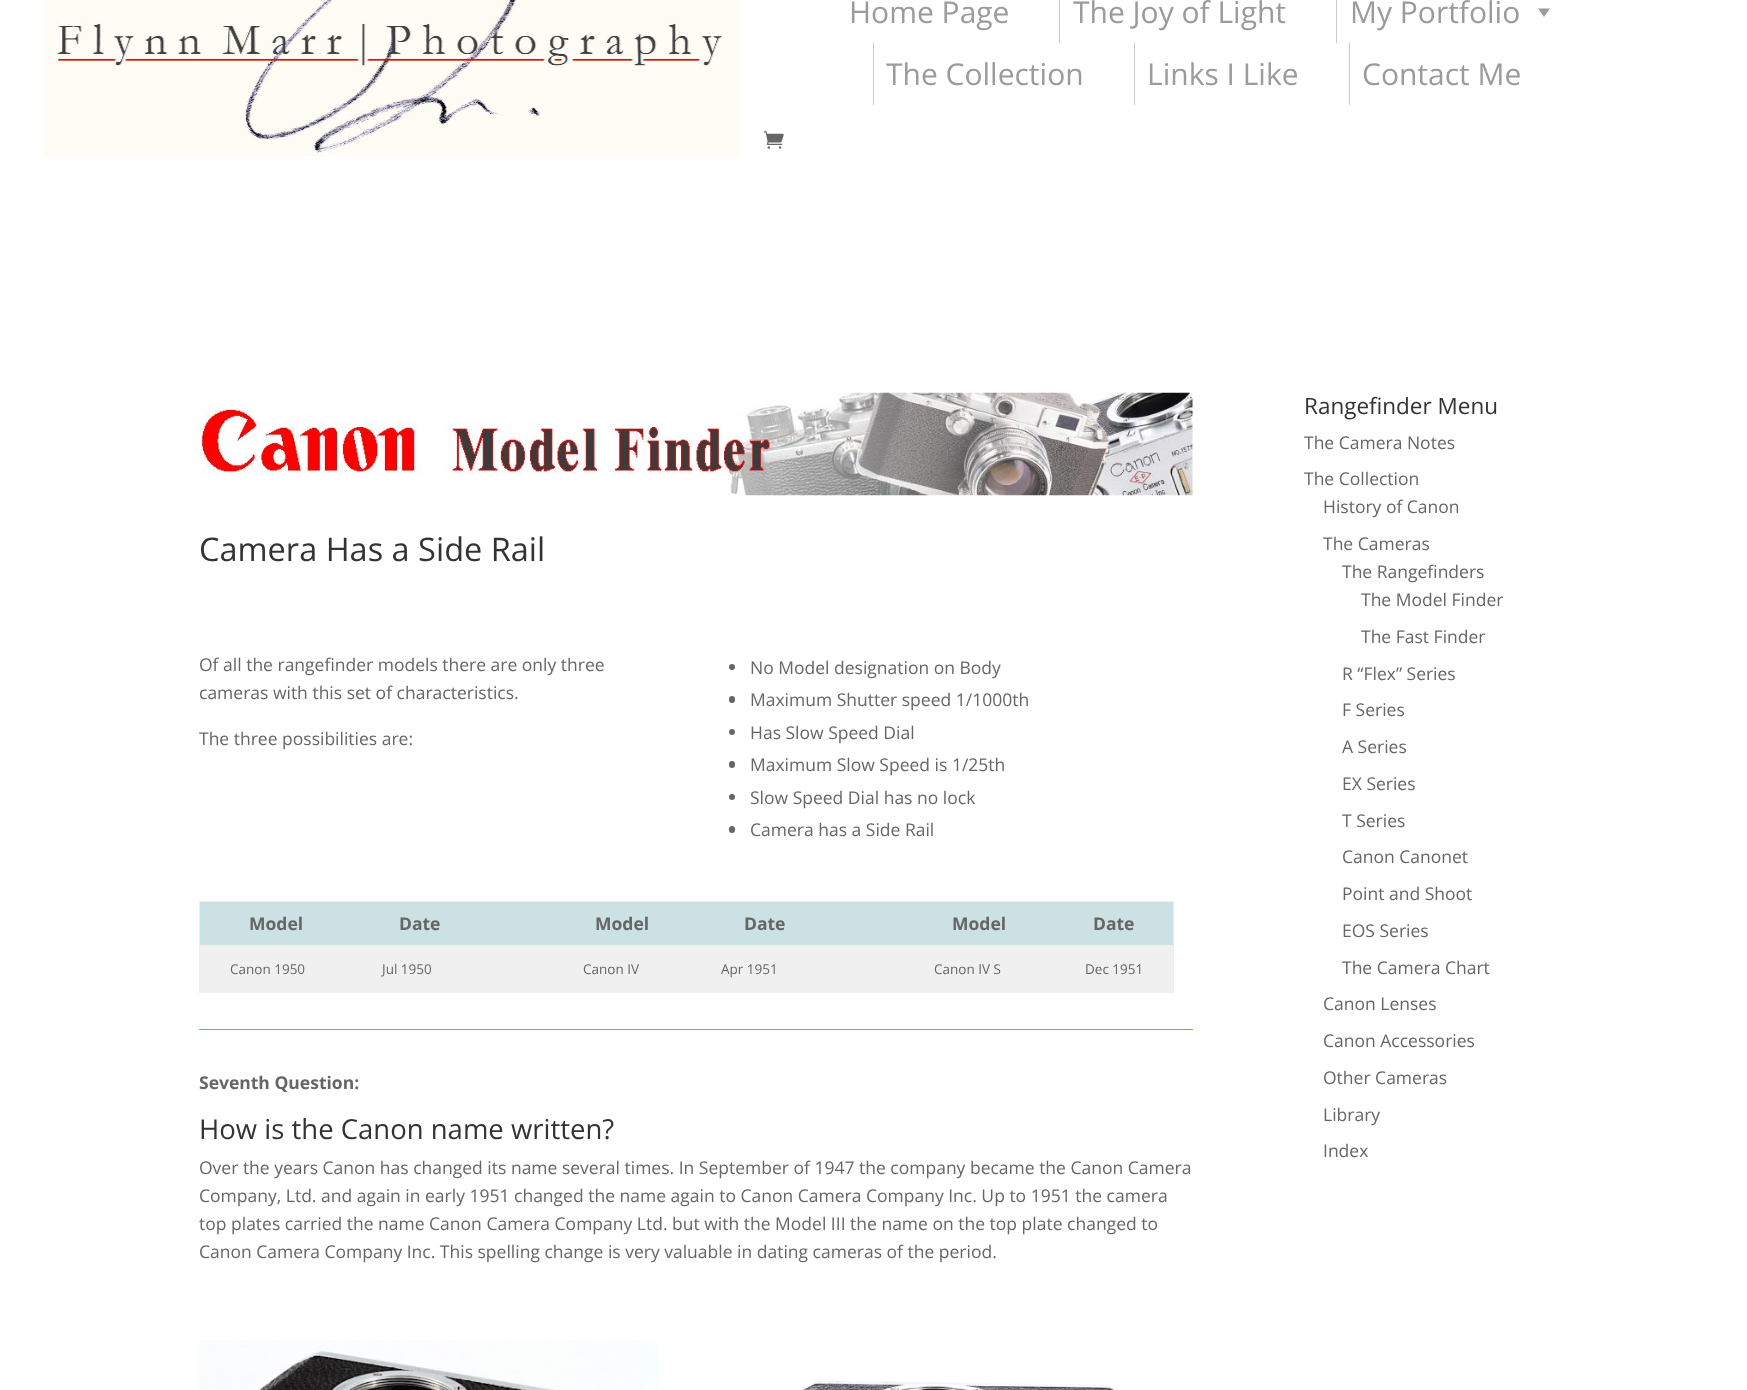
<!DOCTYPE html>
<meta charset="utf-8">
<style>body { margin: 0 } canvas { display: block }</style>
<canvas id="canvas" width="1747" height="1390"></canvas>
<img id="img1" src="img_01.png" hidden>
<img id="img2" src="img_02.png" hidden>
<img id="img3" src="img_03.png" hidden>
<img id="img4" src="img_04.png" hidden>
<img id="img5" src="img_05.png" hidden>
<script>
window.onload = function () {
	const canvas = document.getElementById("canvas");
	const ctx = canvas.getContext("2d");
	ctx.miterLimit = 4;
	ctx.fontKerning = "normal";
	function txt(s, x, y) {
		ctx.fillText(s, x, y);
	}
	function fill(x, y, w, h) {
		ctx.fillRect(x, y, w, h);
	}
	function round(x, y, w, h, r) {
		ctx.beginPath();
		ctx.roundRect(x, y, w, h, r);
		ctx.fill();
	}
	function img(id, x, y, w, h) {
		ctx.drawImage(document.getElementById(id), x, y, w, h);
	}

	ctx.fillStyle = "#FFFFFF";
	fill(0, 0, 1747, 1390);
	img("img1", 42, 0, 699, 157);
	ctx.fillStyle = "#CACACA";
	fill(1059, 0, 1, 43);
	fill(1336, 0, 1, 43);
	ctx.fillStyle = "#9B9B9B";
	ctx.beginPath();
	ctx.moveTo(1550, 8.5);
	ctx.lineTo(1544, 17);
	ctx.lineTo(1538, 8.5);
	ctx.closePath();
	ctx.fill();
	ctx.fillStyle = "#CACACA";
	fill(873, 43, 1, 62);
	fill(1134, 43, 1, 62);
	fill(1349, 43, 1, 62);
	img("img2", 763, 131, 21, 18);
	img("img3", 199, 392, 994, 104);
	ctx.fillStyle = "#666666";
	ctx.beginPath();
	ctx.arc(732, 667, 3, 0, Math.PI * 2);
	ctx.fill();
	round(729, 696, 6, 7, 3);
	ctx.beginPath();
	ctx.arc(732, 732, 3, 0, Math.PI * 2);
	ctx.fill();
	round(729, 761, 6, 7, 3);
	ctx.beginPath();
	ctx.arc(732, 797, 3, 0, Math.PI * 2);
	ctx.fill();
	round(729, 826, 6, 7, 3);
	ctx.fillStyle = "#F0F0F0";
	fill(200, 946, 973, 47);
	ctx.fillStyle = "#EEEEEE";
	fill(199, 901, 975, 1);
	fill(1173, 901, 1, 92);
	fill(199, 901, 1, 92);
	ctx.fillStyle = "#CCE1E3";
	fill(200, 902, 973, 43);
	ctx.fillStyle = "#EEEEEE";
	fill(199, 945, 975, 1);
	ctx.fillStyle = "#6BA8DA";
	fill(199, 1029, 994, 1);
	img("img4", 199, 1340, 460, 50);
	img("img5", 800, 1381, 315, 9);
	ctx.font = "30px Open Sans";
	ctx.fillStyle = "#9B9B9B";
	txt("Home Page", 849, 23);
	txt("The Joy of Light", 1073, 23);
	txt("My Portfolio", 1350, 23);
	txt("The Collection", 886, 85);
	txt("Links I Like", 1147, 85);
	txt("Contact Me", 1362, 85);
	ctx.font = "32.5px Open Sans";
	ctx.fillStyle = "#333333";
	txt("Camera Has a Side Rail", 199, 561);
	ctx.font = "17.5px Open Sans";
	ctx.fillStyle = "#666666";
	txt("Of all the rangefinder models there are only three", 199, 671);
	txt("cameras with this set of characteristics.", 199, 699);
	txt("The three possibilities are:", 199, 745);
	txt("No Model designation on Body", 750, 674);
	txt("Maximum Shutter speed 1/1000th", 750, 706);
	txt("Has Slow Speed Dial", 750, 739);
	txt("Maximum Slow Speed is 1/25th", 750, 771);
	txt("Slow Speed Dial has no lock", 750, 804);
	txt("Camera has a Side Rail", 750, 836);
	ctx.font = "bold 17.5px Open Sans";
	txt("Model", 249, 930);
	txt("Date", 399, 930);
	txt("Model", 595, 930);
	txt("Date", 744, 930);
	txt("Model", 952, 930);
	txt("Date", 1093, 930);
	ctx.font = "13.5px Open Sans";
	txt("Canon 1950", 230, 974);
	txt("Jul 1950", 382, 974);
	txt("Canon IV", 583, 974);
	txt("Apr 1951", 721, 974);
	txt("Canon IV S", 934, 974);
	txt("Dec 1951", 1085, 974);
	ctx.font = "bold 17.5px Open Sans";
	txt("Seventh Question:", 199, 1089);
	ctx.font = "27.5px Open Sans";
	ctx.fillStyle = "#333333";
	txt("How is the Canon name written?", 199, 1139);
	ctx.font = "17.5px Open Sans";
	ctx.fillStyle = "#666666";
	txt("Over the years Canon has changed its name several times. In September of 1947 the company became the Canon Camera", 199, 1174);
	txt("Company, Ltd. and again in early 1951 changed the name again to Canon Camera Company Inc. Up to 1951 the camera", 199, 1202);
	txt("top plates carried the name Canon Camera Company Ltd. but with the Model III the name on the top plate changed to", 199, 1230);
	txt("Canon Camera Company Inc. This spelling change is very valuable in dating cameras of the period.", 199, 1258);
	ctx.font = "22.5px Open Sans";
	ctx.fillStyle = "#333333";
	txt("Rangefinder Menu", 1304, 414);
	ctx.font = "17.5px Open Sans";
	ctx.fillStyle = "#666666";
	txt("The Camera Notes", 1304, 449);
	txt("The Collection", 1304, 485);
	txt("History of Canon", 1323, 513);
	txt("The Cameras", 1323, 550);
	txt("The Rangefinders", 1342, 578);
	txt("The Model Finder", 1361, 606);
	txt("The Fast Finder", 1361, 643);
	txt("R “Flex” Series", 1342, 680);
	txt("F Series", 1342, 716);
	txt("A Series", 1342, 753);
	txt("EX Series", 1342, 790);
	txt("T Series", 1342, 827);
	txt("Canon Canonet", 1342, 863);
	txt("Point and Shoot", 1342, 900);
	txt("EOS Series", 1342, 937);
	txt("The Camera Chart", 1342, 974);
	txt("Canon Lenses", 1323, 1010);
	txt("Canon Accessories", 1323, 1047);
	txt("Other Cameras", 1323, 1084);
	txt("Library", 1323, 1121);
	txt("Index", 1323, 1157);
};
</script>
